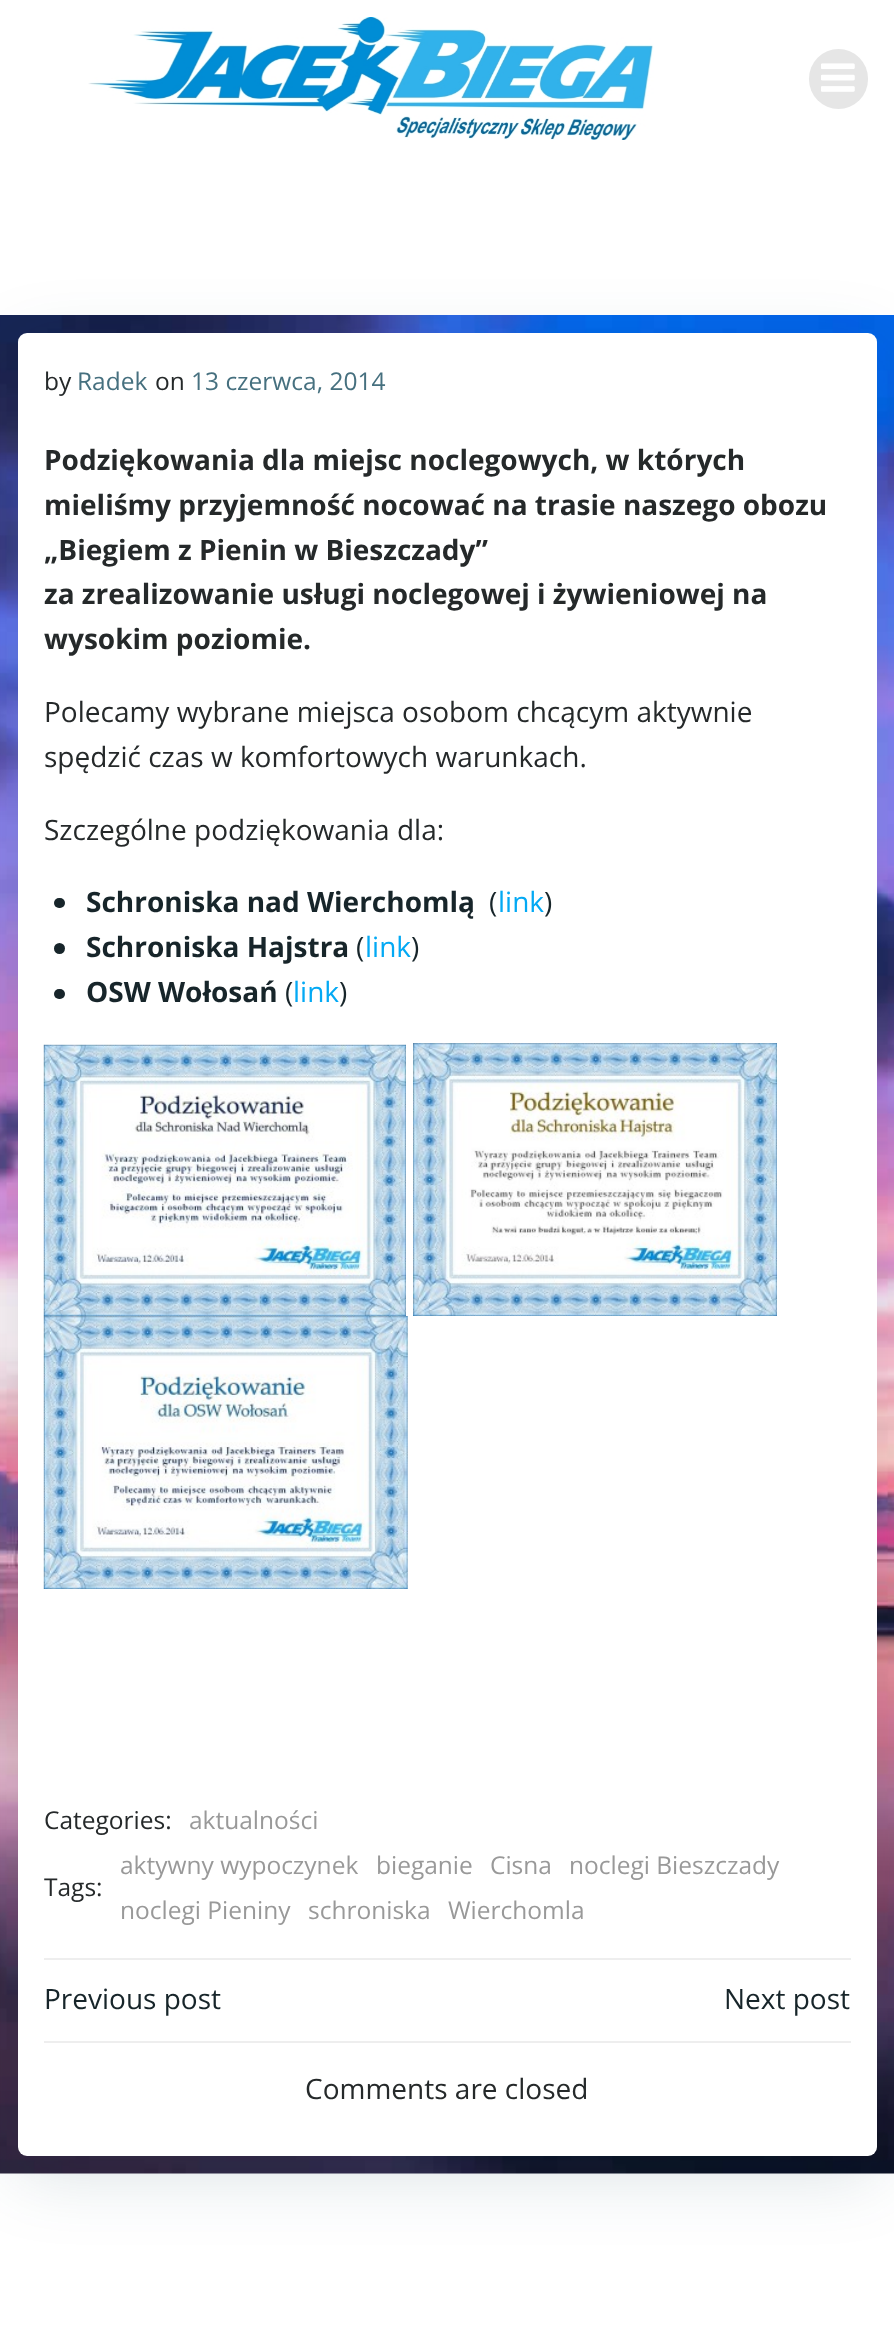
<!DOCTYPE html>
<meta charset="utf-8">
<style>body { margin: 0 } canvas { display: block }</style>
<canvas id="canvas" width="894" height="2341"></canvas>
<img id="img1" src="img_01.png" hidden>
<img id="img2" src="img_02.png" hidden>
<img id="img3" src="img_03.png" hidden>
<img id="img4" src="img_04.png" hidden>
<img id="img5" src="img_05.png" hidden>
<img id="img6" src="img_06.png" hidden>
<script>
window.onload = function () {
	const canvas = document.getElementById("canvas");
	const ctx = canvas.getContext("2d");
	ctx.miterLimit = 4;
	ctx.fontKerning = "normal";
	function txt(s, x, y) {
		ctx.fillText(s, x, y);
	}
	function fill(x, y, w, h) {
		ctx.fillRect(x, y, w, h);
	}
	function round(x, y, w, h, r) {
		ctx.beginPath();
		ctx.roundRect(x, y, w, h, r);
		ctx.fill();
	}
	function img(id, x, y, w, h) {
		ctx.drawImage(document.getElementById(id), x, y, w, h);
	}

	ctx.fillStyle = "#FFFFFF";
	fill(0, 0, 894, 2341);
	img("img1", 88, 17, 566, 123);
	ctx.fillStyle = "#E6E6E6";
	round(809, 49, 59, 60, 29.5);
	img("img2", 821, 63, 34, 29);
	img("img3", 0, 315, 894, 1859);
	ctx.fillStyle = "rgba(1, 51, 74, 0.15)";
	ctx.filter = "blur(35px)";
	ctx.beginPath();
	ctx.roundRect(18, 350, 859, 1824, 9);
	ctx.fill();
	ctx.filter = "none";
	ctx.fillStyle = "#FFFFFF";
	round(18, 333, 859, 1823, 9);
	ctx.fillStyle = "#17252A";
	round(54, 898, 11, 10, 5);
	ctx.beginPath();
	ctx.arc(59.5, 948.5, 5.5, 0, Math.PI * 2);
	ctx.fill();
	round(54, 989, 11, 10, 5);
	img("img4", 43, 1044, 363, 272);
	img("img5", 413, 1043, 364, 273);
	img("img6", 43, 1316, 365, 273);
	ctx.fillStyle = "#EEEEEE";
	fill(44, 1958, 807, 2);
	fill(44, 2041, 807, 2);
	ctx.font = "24.5px Open Sans";
	ctx.fillStyle = "#25292A";
	txt("by", 44, 390);
	ctx.fillStyle = "#46707F";
	txt("Radek", 77, 390);
	ctx.fillStyle = "#25292A";
	txt("on", 155, 390);
	ctx.fillStyle = "#46707F";
	txt("13 czerwca, 2014", 191, 390);
	ctx.font = "bold 28px Open Sans";
	ctx.fillStyle = "#25292A";
	txt("Podziękowania dla miejsc noclegowych, w których", 44, 470);
	txt("mieliśmy przyjemność nocować na trasie naszego obozu", 44, 515);
	txt("„Biegiem z Pienin w Bieszczady”", 44, 560);
	txt("za zrealizowanie usługi noclegowej i żywieniowej na", 44, 604);
	txt("wysokim poziomie.", 44, 649);
	ctx.font = "28px Open Sans";
	txt("Polecamy wybrane miejsca osobom chcącym aktywnie", 44, 722);
	txt("spędzić czas w komfortowych warunkach.", 44, 767);
	txt("Szczególne podziękowania dla:", 44, 840);
	ctx.font = "bold 28px Open Sans";
	ctx.fillStyle = "#17252A";
	txt("Schroniska nad Wierchomlą", 86, 912);
	ctx.font = "28px Open Sans";
	txt("(", 489, 912);
	ctx.fillStyle = "#03A9F4";
	txt("link", 498, 912);
	ctx.fillStyle = "#17252A";
	txt(")", 544, 912);
	ctx.font = "bold 28px Open Sans";
	txt("Schroniska Hajstra", 86, 957);
	ctx.font = "28px Open Sans";
	txt("(", 356, 957);
	ctx.fillStyle = "#03A9F4";
	txt("link", 365, 957);
	ctx.fillStyle = "#17252A";
	txt(")", 411, 957);
	ctx.font = "bold 28px Open Sans";
	txt("OSW Wołosań", 86, 1002);
	ctx.font = "28px Open Sans";
	txt("(", 285, 1002);
	ctx.fillStyle = "#03A9F4";
	txt("link", 293, 1002);
	ctx.fillStyle = "#17252A";
	txt(")", 339, 1002);
	ctx.font = "24.5px Open Sans";
	ctx.fillStyle = "#25292A";
	txt("Categories:", 44, 1829);
	ctx.fillStyle = "#999999";
	txt("aktualności", 189, 1829);
	ctx.fillStyle = "#25292A";
	txt("Tags:", 44, 1896);
	ctx.fillStyle = "#999999";
	txt("aktywny wypoczynek", 120, 1874);
	txt("bieganie", 376, 1874);
	txt("Cisna", 490, 1874);
	txt("noclegi Bieszczady", 569, 1874);
	txt("noclegi Pieniny", 120, 1919);
	txt("schroniska", 308, 1919);
	txt("Wierchomla", 448, 1919);
	ctx.font = "28px Open Sans";
	ctx.fillStyle = "#17252A";
	txt("Previous post", 44, 2009);
	txt("Next post", 724, 2009);
	ctx.fillStyle = "#25292A";
	txt("Comments are closed", 305, 2099);
};
</script>
